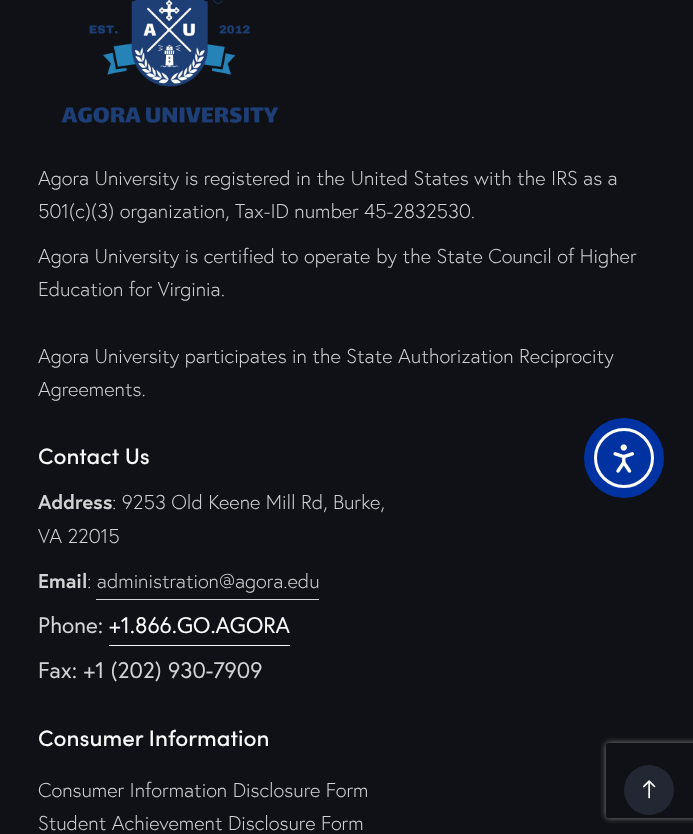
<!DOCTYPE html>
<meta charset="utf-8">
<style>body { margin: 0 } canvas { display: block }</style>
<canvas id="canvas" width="693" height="834"></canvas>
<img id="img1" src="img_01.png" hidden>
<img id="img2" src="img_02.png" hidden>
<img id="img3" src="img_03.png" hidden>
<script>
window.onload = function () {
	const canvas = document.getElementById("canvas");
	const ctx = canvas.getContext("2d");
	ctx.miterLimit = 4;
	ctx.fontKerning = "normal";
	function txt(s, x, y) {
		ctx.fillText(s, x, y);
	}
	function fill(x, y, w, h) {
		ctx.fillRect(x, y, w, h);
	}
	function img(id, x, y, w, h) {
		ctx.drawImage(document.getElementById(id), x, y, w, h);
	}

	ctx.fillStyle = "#0F1116";
	fill(0, 0, 693, 834);
	img("img1", 61, 0, 218, 123);
	ctx.fillStyle = "#D2D3D5";
	fill(96, 599, 223, 1);
	ctx.fillStyle = "#F9F9F9";
	fill(109, 645, 181, 1);
	ctx.fillStyle = "#0033A1";
	ctx.beginPath();
	ctx.arc(624, 458, 40, 0, Math.PI * 2);
	ctx.fill();
	ctx.beginPath();
	ctx.arc(624, 458, 28.5, 0, Math.PI * 2);
	ctx.strokeStyle = "#FFFFFF";
	ctx.lineWidth = 3;
	ctx.stroke();
	img("img2", 613, 444, 21, 29);
	ctx.save();
	ctx.beginPath();
	ctx.moveTo(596, 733);
	ctx.lineTo(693, 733);
	ctx.lineTo(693, 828);
	ctx.lineTo(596, 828);
	ctx.closePath();
	ctx.moveTo(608.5, 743);
	ctx.lineTo(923.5, 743);
	ctx.bezierCurveTo(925, 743, 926, 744, 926, 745.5);
	ctx.lineTo(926, 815.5);
	ctx.bezierCurveTo(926, 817, 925, 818, 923.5, 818);
	ctx.lineTo(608.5, 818);
	ctx.bezierCurveTo(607, 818, 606, 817, 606, 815.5);
	ctx.lineTo(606, 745.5);
	ctx.bezierCurveTo(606, 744, 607, 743, 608.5, 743);
	ctx.closePath();
	ctx.clip("evenodd");
	ctx.fillStyle = "#808080";
	ctx.filter = "blur(3px)";
	ctx.beginPath();
	ctx.roundRect(606, 743, 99, 75, 2.5);
	ctx.fill();
	ctx.filter = "none";
	ctx.restore();
	ctx.fillStyle = "#222733";
	ctx.beginPath();
	ctx.arc(649, 790, 25, 0, Math.PI * 2);
	ctx.fill();
	img("img3", 642, 780, 14, 19);
	ctx.font = "300 20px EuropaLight";
	ctx.fillStyle = "#D2D3D5";
	txt("Agora University is registered in the United States with the IRS as a", 38, 185);
	txt("501(c)(3) organization, Tax-ID number 45-2832530.", 38, 218);
	txt("Agora University is certified to operate by the State Council of Higher", 38, 263);
	txt("Education for Virginia.", 38, 296);
	txt("Agora University participates in the State Authorization Reciprocity", 38, 363);
	txt("Agreements.", 38, 396);
	ctx.font = "500 22.5px Sofia";
	ctx.fillStyle = "#F9F9F9";
	txt("Contact Us", 38, 464);
	ctx.font = "bold 20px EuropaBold";
	ctx.fillStyle = "#D2D3D5";
	txt("Address", 38, 509);
	ctx.font = "300 20px EuropaLight";
	txt(": 9253 Old Keene Mill Rd, Burke,", 112, 509);
	txt("VA 22015", 38, 543);
	ctx.font = "bold 20px EuropaBold";
	txt("Email", 38, 588);
	ctx.font = "300 20px EuropaLight";
	txt(": administration@agora.edu", 87, 588);
	ctx.font = "22.5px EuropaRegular";
	txt("Phone:", 38, 633);
	ctx.fillStyle = "#F9F9F9";
	txt("+1.866.GO.AGORA", 109, 633);
	ctx.fillStyle = "#D2D3D5";
	txt("Fax: +1 (202) 930-7909", 38, 678);
	ctx.font = "500 22.5px Sofia";
	ctx.fillStyle = "#F9F9F9";
	txt("Consumer Information", 38, 746);
	ctx.font = "300 20px EuropaLight";
	ctx.fillStyle = "#D2D3D5";
	txt("Consumer Information Disclosure Form", 38, 797);
	txt("Student Achievement Disclosure Form", 38, 830);
};
</script>
